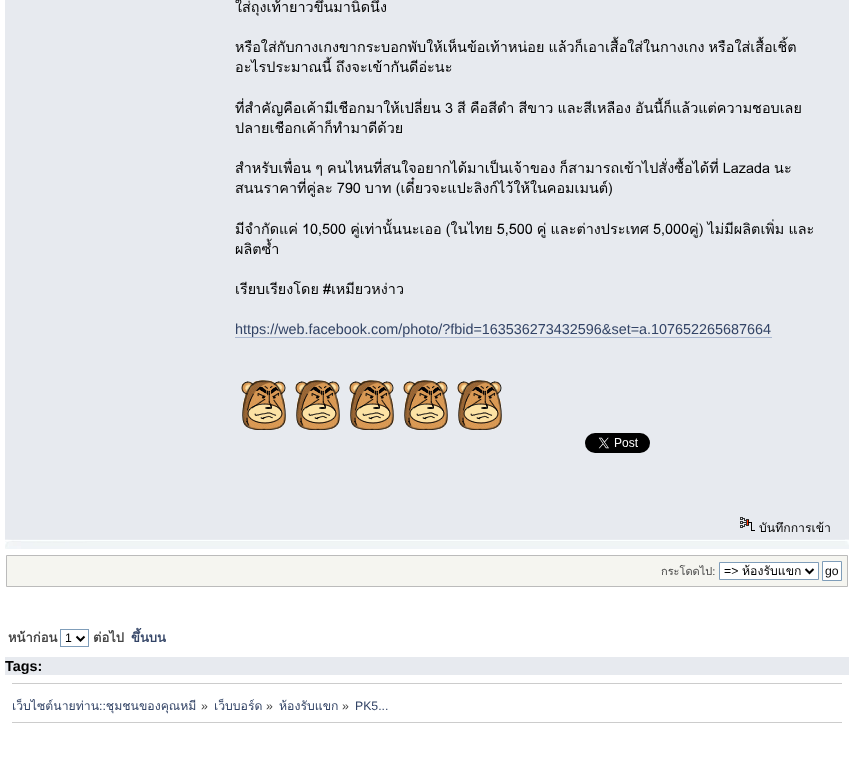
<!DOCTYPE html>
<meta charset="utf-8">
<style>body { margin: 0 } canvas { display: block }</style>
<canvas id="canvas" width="854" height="774"></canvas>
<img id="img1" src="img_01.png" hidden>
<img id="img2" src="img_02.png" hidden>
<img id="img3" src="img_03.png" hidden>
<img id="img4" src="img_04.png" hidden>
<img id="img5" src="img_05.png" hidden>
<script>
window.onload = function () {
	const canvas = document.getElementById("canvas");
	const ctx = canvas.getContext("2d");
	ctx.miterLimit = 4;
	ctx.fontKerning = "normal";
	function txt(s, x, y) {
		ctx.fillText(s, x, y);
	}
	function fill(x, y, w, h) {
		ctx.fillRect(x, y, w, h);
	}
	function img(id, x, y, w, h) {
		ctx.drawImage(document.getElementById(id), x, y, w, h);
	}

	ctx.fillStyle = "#FFFFFF";
	fill(0, 0, 854, 774);
	ctx.fillStyle = "#E7EAEF";
	fill(5, 0, 844, 542);
	ctx.fillStyle = "#A8B6CF";
	fill(235, 337, 537, 1);
	img("img1", 241, 380, 45, 50);
	img("img1", 295, 380, 45, 50);
	img("img1", 349, 380, 45, 50);
	img("img1", 403, 380, 45, 50);
	img("img1", 457, 380, 45, 50);
	img("img2", 585, 433, 65, 20);
	img("img3", 740, 517, 15, 14);
	img("img4", 5, 539, 844, 10);
	img("img5", 845, 539, 4, 6);
	ctx.fillStyle = "#F5F5F0";
	ctx.beginPath();
	ctx.rect(6.5, 555.5, 841, 31);
	ctx.fill();
	ctx.strokeStyle = "#BBBBBB";
	ctx.stroke();
	ctx.fillStyle = "#FFFFFF";
	ctx.beginPath();
	ctx.rect(719.5, 562.5, 99, 17);
	ctx.fill();
	ctx.strokeStyle = "#7F9DB9";
	ctx.stroke();
	ctx.beginPath();
	ctx.moveTo(805.5, 569);
	ctx.lineTo(809.5, 573);
	ctx.lineTo(813.5, 569);
	ctx.strokeStyle = "#000000";
	ctx.lineWidth = 2;
	ctx.stroke();
	ctx.beginPath();
	ctx.rect(822.5, 561.5, 19, 19);
	ctx.fill();
	ctx.strokeStyle = "#7F9DB9";
	ctx.lineWidth = 1;
	ctx.stroke();
	ctx.strokeRect(60.5, 629.5, 28, 17);
	ctx.beginPath();
	ctx.moveTo(76.5, 636.5);
	ctx.lineTo(80.5, 640.5);
	ctx.lineTo(84.5, 636.5);
	ctx.strokeStyle = "#000000";
	ctx.lineWidth = 2;
	ctx.stroke();
	ctx.fillStyle = "#E7EAEF";
	fill(5, 657, 844, 18);
	ctx.fillStyle = "#CCCCCC";
	fill(12, 683, 830, 1);
	fill(12, 722, 830, 1);
	ctx.font = "14.4px Loma";
	ctx.fillStyle = "#000000";
	txt("ใส่ถุงเท้ายาวขึ้นมานิดนึง", 235, 12);
	ctx.wordSpacing = "-0.75px";
	txt("หรือใส่กับกางเกงขากระบอกพับให้เห็นข้อเท้าหน่อย แล้วก็เอาเสื้อใส่ในกางเกง หรือใส่เสื้อเชิ้ต", 235, 52);
	txt("อะไรประมาณนี้ ถึงจะเข้ากันดีอ่ะนะ", 235, 72);
	ctx.save();
	ctx.beginPath();
	ctx.rect(235, 0, 600, 515);
	ctx.clip();
	txt("ที่สำคัญคือเค้ามีเชือกมาให้เปลี่ยน 3 สี คือสีดำ สีขาว และสีเหลือง อันนี้ก็แล้วแต่ความชอบเลย", 235, 113);
	ctx.restore();
	ctx.wordSpacing = "0px";
	txt("ปลายเชือกเค้าก็ทำมาดีด้วย", 235, 133);
	ctx.save();
	ctx.beginPath();
	ctx.rect(235, 0, 600, 515);
	ctx.clip();
	ctx.wordSpacing = "-0.75px";
	txt("สำหรับเพื่อน ๆ คนไหนที่สนใจอยากได้มาเป็นเจ้าของ ก็สามารถเข้าไปสั่งซื้อได้ที่ Lazada นะ", 235, 173);
	ctx.restore();
	ctx.wordSpacing = "-0.75px";
	txt("สนนราคาที่คู่ละ 790 บาท (เดี๋ยวจะแปะลิงก์ไว้ให้ในคอมเมนต์)", 235, 193);
	ctx.save();
	ctx.beginPath();
	ctx.rect(235, 0, 600, 515);
	ctx.clip();
	txt("มีจำกัดแค่ 10,500 คู่เท่านั้นนะเออ (ในไทย 5,500 คู่ และต่างประเทศ 5,000คู่) ไม่มีผลิตเพิ่ม และ", 235, 234);
	ctx.restore();
	ctx.wordSpacing = "0px";
	txt("ผลิตซ้ำ", 235, 254);
	ctx.save();
	ctx.beginPath();
	ctx.rect(235, 0, 600, 515);
	ctx.clip();
	ctx.wordSpacing = "-0.75px";
	txt("เรียบเรียงโดย #เหมียวหง่าว", 235, 294);
	ctx.restore();
	ctx.font = "14.4px Liberation Sans";
	ctx.fillStyle = "#334466";
	txt("https://web.facebook.com/photo/?fbid=163536273432596&set=a.107652265687664", 235, 334);
	ctx.font = "12.25px Loma";
	ctx.fillStyle = "#000000";
	txt("บันทึกการเข้า", 759, 532);
	ctx.font = "11px Loma";
	ctx.fillStyle = "#444444";
	txt("กระโดดไป:", 661, 575);
	ctx.font = "12.25px Liberation Sans";
	ctx.fillStyle = "#000000";
	txt("=>", 724, 575);
	ctx.font = "12.25px Loma";
	txt("ห้องรับแขก", 742, 575);
	ctx.font = "12.25px Liberation Sans";
	txt("go", 825, 575);
	ctx.font = "bold 13px Loma";
	ctx.fillStyle = "#444444";
	txt("หน้าก่อน", 8, 642);
	ctx.font = "12.25px Liberation Sans";
	ctx.fillStyle = "#000000";
	txt("1", 65, 642);
	ctx.font = "bold 13px Loma";
	ctx.fillStyle = "#444444";
	txt("ต่อไป", 93, 642);
	ctx.fillStyle = "#334466";
	txt("ขึ้นบน", 131, 642);
	ctx.font = "bold 14.4px Liberation Sans";
	ctx.fillStyle = "#000000";
	txt("Tags:", 5, 671);
	ctx.save();
	ctx.beginPath();
	ctx.rect(12, 684, 830, 38);
	ctx.clip();
	ctx.font = "12.25px Loma";
	ctx.fillStyle = "#334466";
	txt("เว็บไซต์นายท่าน::ชุมชนของคุณหมี", 12, 710);
	ctx.restore();
	ctx.font = "12.25px Liberation Sans";
	ctx.fillStyle = "#444444";
	txt("»", 201, 710);
	ctx.font = "12.25px Loma";
	ctx.fillStyle = "#334466";
	txt("เว็บบอร์ด", 214, 710);
	ctx.font = "12.25px Liberation Sans";
	ctx.fillStyle = "#444444";
	txt("»", 266, 710);
	ctx.font = "12.25px Loma";
	ctx.fillStyle = "#334466";
	txt("ห้องรับแขก", 279, 710);
	ctx.font = "12.25px Liberation Sans";
	ctx.fillStyle = "#444444";
	txt("»", 342, 710);
	ctx.fillStyle = "#334466";
	txt("PK5...", 355, 710);
};
</script>
